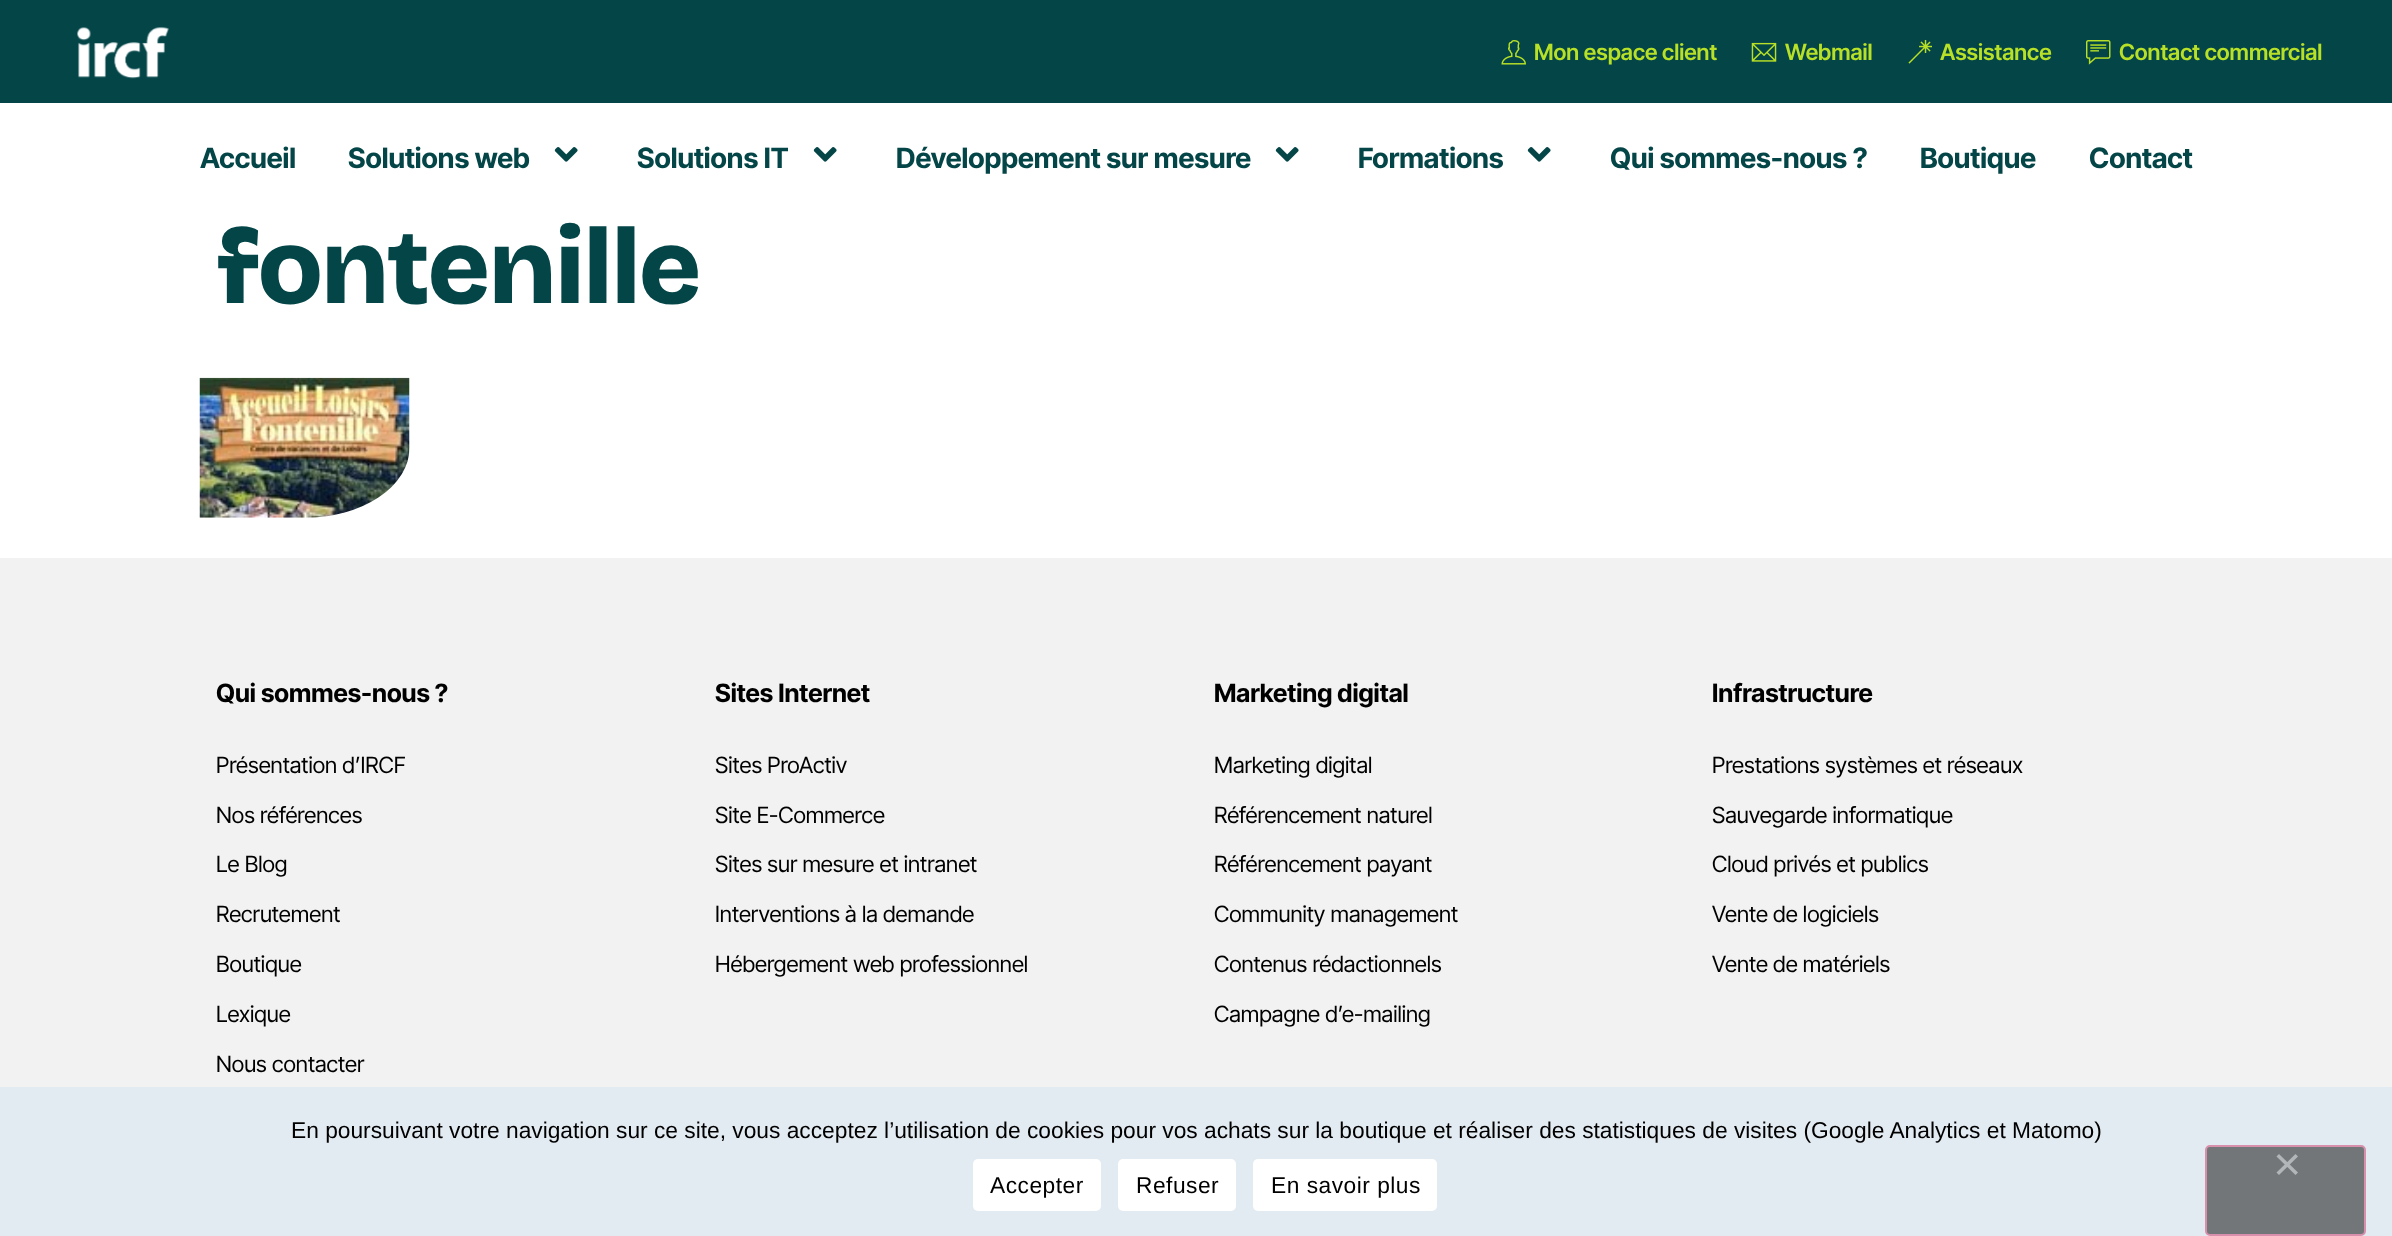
<!DOCTYPE html>
<meta charset="utf-8">
<style>body { margin: 0 } canvas { display: block }</style>
<canvas id="canvas" width="2392" height="1236"></canvas>
<img id="img1" src="img_01.png" hidden>
<img id="img2" src="img_02.png" hidden>
<img id="img3" src="img_03.png" hidden>
<img id="img4" src="img_04.png" hidden>
<img id="img5" src="img_05.png" hidden>
<img id="img6" src="img_06.png" hidden>
<img id="img7" src="img_07.png" hidden>
<script>
window.onload = function () {
	const canvas = document.getElementById("canvas");
	const ctx = canvas.getContext("2d");
	ctx.miterLimit = 4;
	ctx.fontKerning = "normal";
	function txt(s, x, y) {
		ctx.fillText(s, x, y);
	}
	function fill(x, y, w, h) {
		ctx.fillRect(x, y, w, h);
	}
	function round(x, y, w, h, r) {
		ctx.beginPath();
		ctx.roundRect(x, y, w, h, r);
		ctx.fill();
	}
	function img(id, x, y, w, h) {
		ctx.drawImage(document.getElementById(id), x, y, w, h);
	}
	let gradient;

	ctx.fillStyle = "#FFFFFF";
	fill(0, 0, 2392, 1236);
	ctx.fillStyle = "#044548";
	fill(0, 0, 2392, 103);
	img("img1", 77, 27, 92, 52);
	img("img2", 1501, 40, 25, 25);
	img("img3", 1751, 42, 26, 20);
	img("img4", 1908, 40, 24, 24);
	img("img5", 2086, 40, 25, 25);
	img("img6", 554, 147, 24, 15);
	img("img6", 813, 147, 24, 15);
	img("img6", 1275, 147, 24, 15);
	img("img6", 1527, 147, 24, 15);
	img("img7", 199, 377, 211, 141);
	ctx.fillStyle = "#F2F2F2";
	fill(0, 558, 2392, 529);
	ctx.fillStyle = "#E3EBF2";
	fill(0, 1087, 2392, 149);
	ctx.fillStyle = "#FFFFFF";
	round(973, 1159, 128, 52, 5);
	round(1118, 1159, 118, 52, 5);
	round(1253, 1159, 184, 52, 5);
	ctx.fillStyle = "#727679";
	ctx.beginPath();
	ctx.roundRect(2206, 1146, 159, 89, 4);
	ctx.fill();
	ctx.strokeStyle = "#D88FAC";
	ctx.lineWidth = 2;
	ctx.stroke();
	ctx.fillStyle = "#B2B6B9";
	ctx.beginPath();
	ctx.moveTo(2295.5, 1154);
	ctx.lineTo(2298, 1156.5);
	ctx.lineTo(2279, 1175);
	ctx.lineTo(2276.5, 1172.5);
	ctx.closePath();
	ctx.fill();
	ctx.beginPath();
	ctx.moveTo(2276.5, 1156.5);
	ctx.lineTo(2279, 1154);
	ctx.lineTo(2298, 1172.5);
	ctx.lineTo(2295.5, 1175);
	ctx.closePath();
	ctx.fill();
	ctx.font = "600 22.4px Inter Tight";
	ctx.fillStyle = "#B7E026";
	txt("Mon espace client", 1534, 60);
	txt("Webmail", 1785, 60);
	txt("Assistance", 1940, 60);
	txt("Contact commercial", 2119, 60);
	ctx.font = "bold 28px Inter Tight";
	ctx.fillStyle = "#044548";
	txt("Accueil", 200, 168);
	txt("Solutions web", 348, 168);
	txt("Solutions IT", 637, 168);
	txt("Développement sur mesure", 896, 168);
	txt("Formations", 1358, 168);
	txt("Qui sommes-nous ?", 1610, 168);
	txt("Boutique", 1920, 168);
	txt("Contact", 2089, 168);
	ctx.letterSpacing = "-2.1px";
	ctx.font = "800 106.5px Bricolage Grotesque";
	gradient = ctx.createLinearGradient(199, 269, 2194, 269);
	gradient.addColorStop(0, "#044548");
	gradient.addColorStop(0.33, "#044548");
	gradient.addColorStop(0.67, "#0786AD");
	gradient.addColorStop(1, "#0786AD");
	ctx.fillStyle = gradient;
	txt("fontenille", 216, 303);
	ctx.letterSpacing = "0px";
	ctx.font = "bold 25.25px Inter Tight";
	ctx.fillStyle = "#000000";
	txt("Qui sommes-nous ?", 216, 702);
	ctx.font = "22.4px Inter Tight";
	txt("Présentation d’IRCF", 216, 773);
	txt("Nos références", 216, 823);
	txt("Le Blog", 216, 872);
	txt("Recrutement", 216, 922);
	txt("Boutique", 216, 972);
	txt("Lexique", 216, 1022);
	txt("Nous contacter", 216, 1072);
	ctx.font = "bold 25.25px Inter Tight";
	txt("Sites Internet", 715, 702);
	ctx.font = "22.4px Inter Tight";
	txt("Sites ProActiv", 715, 773);
	txt("Site E-Commerce", 715, 823);
	txt("Sites sur mesure et intranet", 715, 872);
	txt("Interventions à la demande", 715, 922);
	txt("Hébergement web professionnel", 715, 972);
	ctx.font = "bold 25.25px Inter Tight";
	txt("Marketing digital", 1214, 702);
	ctx.font = "22.4px Inter Tight";
	txt("Marketing digital", 1214, 773);
	txt("Référencement naturel", 1214, 823);
	txt("Référencement payant", 1214, 872);
	txt("Community management", 1214, 922);
	txt("Contenus rédactionnels", 1214, 972);
	txt("Campagne d’e-mailing", 1214, 1022);
	ctx.font = "bold 25.25px Inter Tight";
	txt("Infrastructure", 1712, 702);
	ctx.font = "22.4px Inter Tight";
	txt("Prestations systèmes et réseaux", 1712, 773);
	txt("Sauvegarde informatique", 1712, 823);
	txt("Cloud privés et publics", 1712, 872);
	txt("Vente de logiciels", 1712, 922);
	txt("Vente de matériels", 1712, 972);
	ctx.font = "22.75px Liberation Sans";
	txt("En poursuivant votre navigation sur ce site, vous acceptez l’utilisation de cookies pour vos achats sur la boutique et réaliser des statistiques de visites (Google Analytics et Matomo)", 291, 1138);
	ctx.letterSpacing = "0.5px";
	txt("Accepter", 990, 1193);
	txt("Refuser", 1136, 1193);
	txt("En savoir plus", 1271, 1193);
};
</script>
